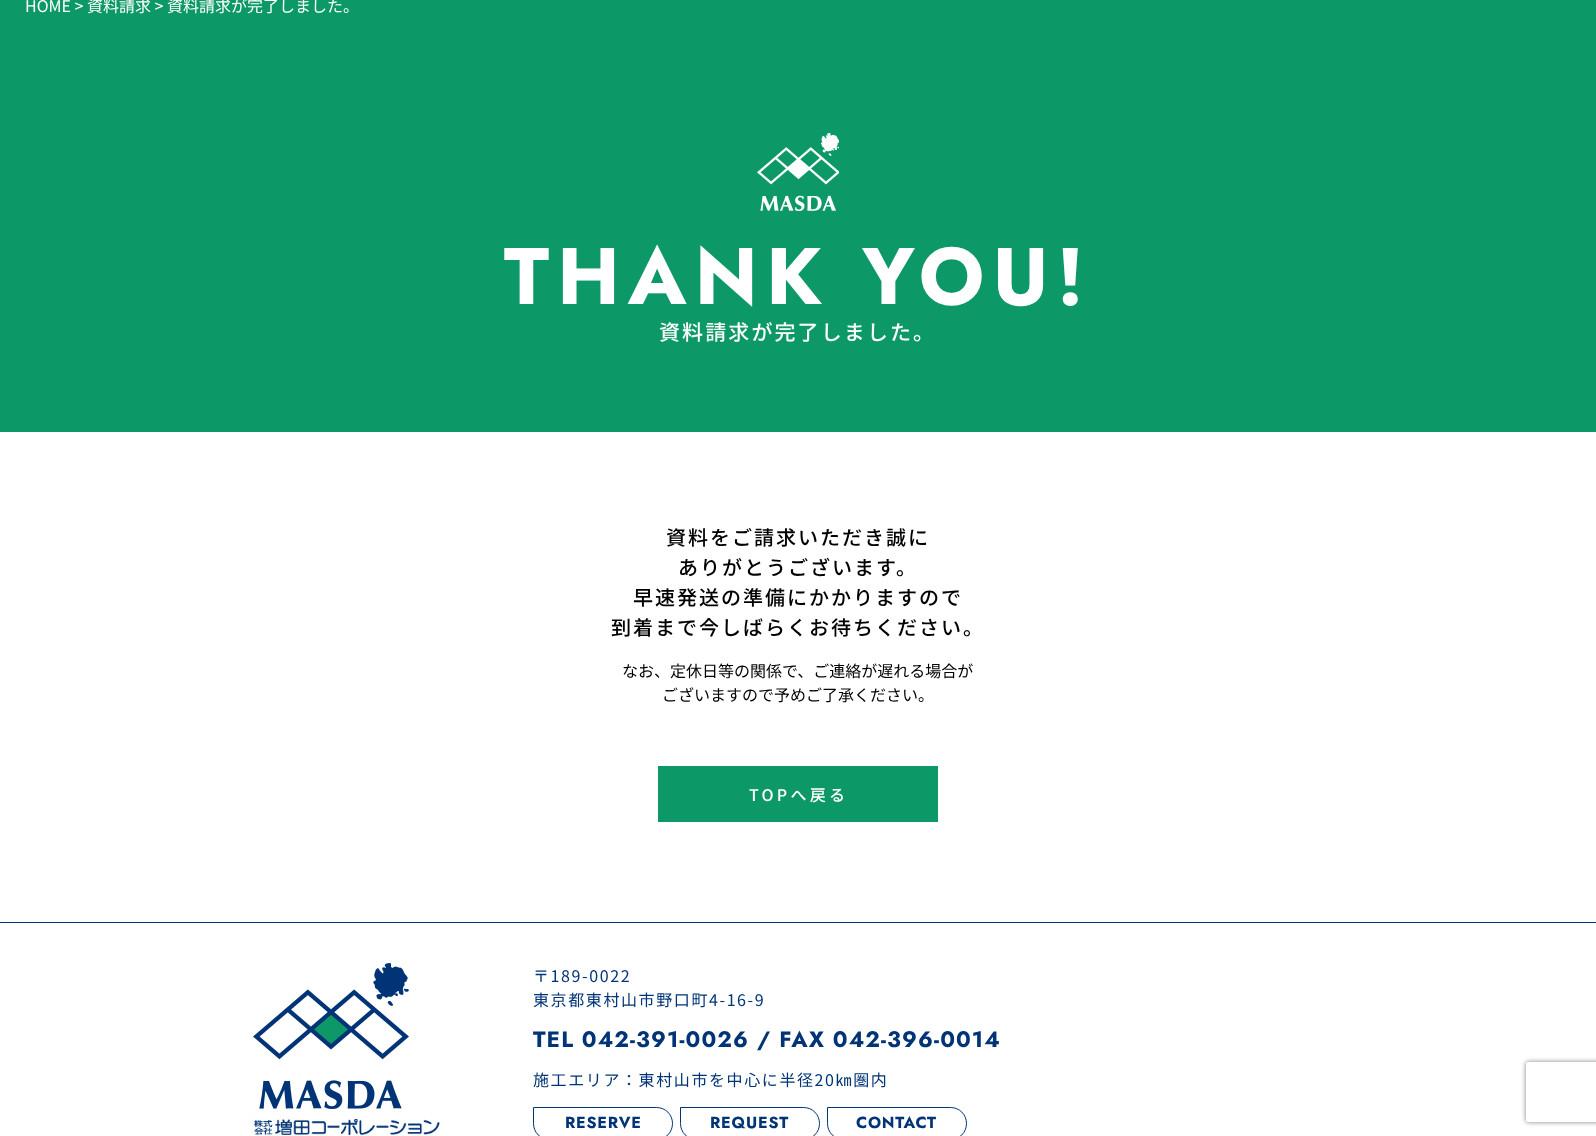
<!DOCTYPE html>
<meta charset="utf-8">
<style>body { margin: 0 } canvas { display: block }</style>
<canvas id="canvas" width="1596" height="1136"></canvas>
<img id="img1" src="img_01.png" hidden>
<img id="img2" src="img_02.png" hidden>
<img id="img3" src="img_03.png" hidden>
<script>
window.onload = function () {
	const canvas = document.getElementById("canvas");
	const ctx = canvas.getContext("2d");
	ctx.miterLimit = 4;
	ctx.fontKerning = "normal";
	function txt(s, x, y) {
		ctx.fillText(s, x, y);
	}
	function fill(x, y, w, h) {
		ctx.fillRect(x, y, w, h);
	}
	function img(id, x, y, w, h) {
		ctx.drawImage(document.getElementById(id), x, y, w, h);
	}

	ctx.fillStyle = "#FFFFFF";
	fill(0, 0, 1596, 1136);
	ctx.fillStyle = "#0D9967";
	fill(0, 0, 1596, 432);
	img("img1", 757, 133, 82, 78);
	fill(658, 766, 280, 56);
	ctx.fillStyle = "#003476";
	fill(0, 922, 1596, 1);
	img("img2", 253, 963, 156, 146);
	img("img3", 253, 1119, 187, 16);
	ctx.beginPath();
	ctx.moveTo(533.5, 1107.5);
	ctx.lineTo(656.5, 1107.5);
	ctx.bezierCurveTo(665.5, 1107.5, 672.5, 1114.5, 672.5, 1123.5);
	ctx.bezierCurveTo(672.5, 1132.5, 665.5, 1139.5, 656.5, 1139.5);
	ctx.lineTo(549.5, 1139.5);
	ctx.bezierCurveTo(540.5, 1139.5, 533.5, 1132.5, 533.5, 1123.5);
	ctx.closePath();
	ctx.strokeStyle = "#003476";
	ctx.stroke();
	ctx.beginPath();
	ctx.moveTo(680.5, 1107.5);
	ctx.lineTo(803.5, 1107.5);
	ctx.bezierCurveTo(812.5, 1107.5, 819.5, 1114.5, 819.5, 1123.5);
	ctx.bezierCurveTo(819.5, 1132.5, 812.5, 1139.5, 803.5, 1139.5);
	ctx.lineTo(696.5, 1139.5);
	ctx.bezierCurveTo(687.5, 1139.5, 680.5, 1132.5, 680.5, 1123.5);
	ctx.closePath();
	ctx.stroke();
	ctx.beginPath();
	ctx.moveTo(827.5, 1107.5);
	ctx.lineTo(950.5, 1107.5);
	ctx.bezierCurveTo(959.5, 1107.5, 966.5, 1114.5, 966.5, 1123.5);
	ctx.bezierCurveTo(966.5, 1132.5, 959.5, 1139.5, 950.5, 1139.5);
	ctx.lineTo(843.5, 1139.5);
	ctx.bezierCurveTo(834.5, 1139.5, 827.5, 1132.5, 827.5, 1123.5);
	ctx.closePath();
	ctx.stroke();
	ctx.save();
	ctx.beginPath();
	ctx.moveTo(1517, 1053);
	ctx.lineTo(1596, 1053);
	ctx.lineTo(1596, 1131);
	ctx.lineTo(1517, 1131);
	ctx.closePath();
	ctx.moveTo(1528, 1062);
	ctx.lineTo(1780, 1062);
	ctx.bezierCurveTo(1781, 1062, 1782, 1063, 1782, 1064);
	ctx.lineTo(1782, 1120);
	ctx.bezierCurveTo(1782, 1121, 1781, 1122, 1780, 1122);
	ctx.lineTo(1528, 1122);
	ctx.bezierCurveTo(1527, 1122, 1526, 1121, 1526, 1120);
	ctx.lineTo(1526, 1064);
	ctx.bezierCurveTo(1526, 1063, 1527, 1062, 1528, 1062);
	ctx.closePath();
	ctx.clip("evenodd");
	ctx.fillStyle = "#808080";
	ctx.filter = "blur(2.5px)";
	ctx.beginPath();
	ctx.roundRect(1526, 1062, 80, 60, 2);
	ctx.fill();
	ctx.filter = "none";
	ctx.restore();
	ctx.font = "16px Noto Sans JP";
	ctx.fillStyle = "#FFFFFF";
	txt("HOME > 資料請求 > 資料請求が完了しました。", 25, 12);
	ctx.letterSpacing = "8px";
	ctx.font = "bold 80px Jost";
	txt("THANK YOU!", 504, 304);
	ctx.letterSpacing = "2.1px";
	ctx.font = "500 21px Noto Sans JP";
	txt("資料請求が完了しました。", 659, 340);
	ctx.letterSpacing = "2px";
	ctx.font = "500 20px Noto Sans JP";
	ctx.fillStyle = "#000000";
	txt("資料をご請求いただき誠に", 666, 545);
	txt("ありがとうございます。", 678, 575);
	txt("早速発送の準備にかかりますので", 633, 605);
	txt("到着まで今しばらくお待ちください。", 611, 635);
	ctx.letterSpacing = "0px";
	ctx.font = "16px Noto Sans JP";
	txt("なお、定休日等の関係で、ご連絡が遅れる場合が", 622, 677);
	txt("ございますので予めご了承ください。", 662, 701);
	ctx.letterSpacing = "3.25px";
	ctx.font = "500 16px Noto Sans JP";
	ctx.fillStyle = "#FFFFFF";
	txt("TOPへ戻る", 749, 801);
	ctx.letterSpacing = "1.6px";
	ctx.font = "16px Noto Sans JP";
	ctx.fillStyle = "#003476";
	txt("〒189-0022", 533, 982);
	txt("東京都東村山市野口町4-16-9", 533, 1006);
	ctx.letterSpacing = "1.1px";
	ctx.font = "bold 22.3px Jost";
	txt("TEL 042-391-0026 / FAX 042-396-0014", 533, 1047);
	ctx.letterSpacing = "1.6px";
	ctx.font = "16px Noto Sans JP";
	txt("施工エリア：東村山市を中心に半径20㎞圏内", 533, 1086);
	ctx.letterSpacing = "0.75px";
	ctx.font = "bold 16px Jost";
	txt("RESERVE", 565, 1128);
	txt("REQUEST", 710, 1128);
	txt("CONTACT", 856, 1128);
};
</script>
